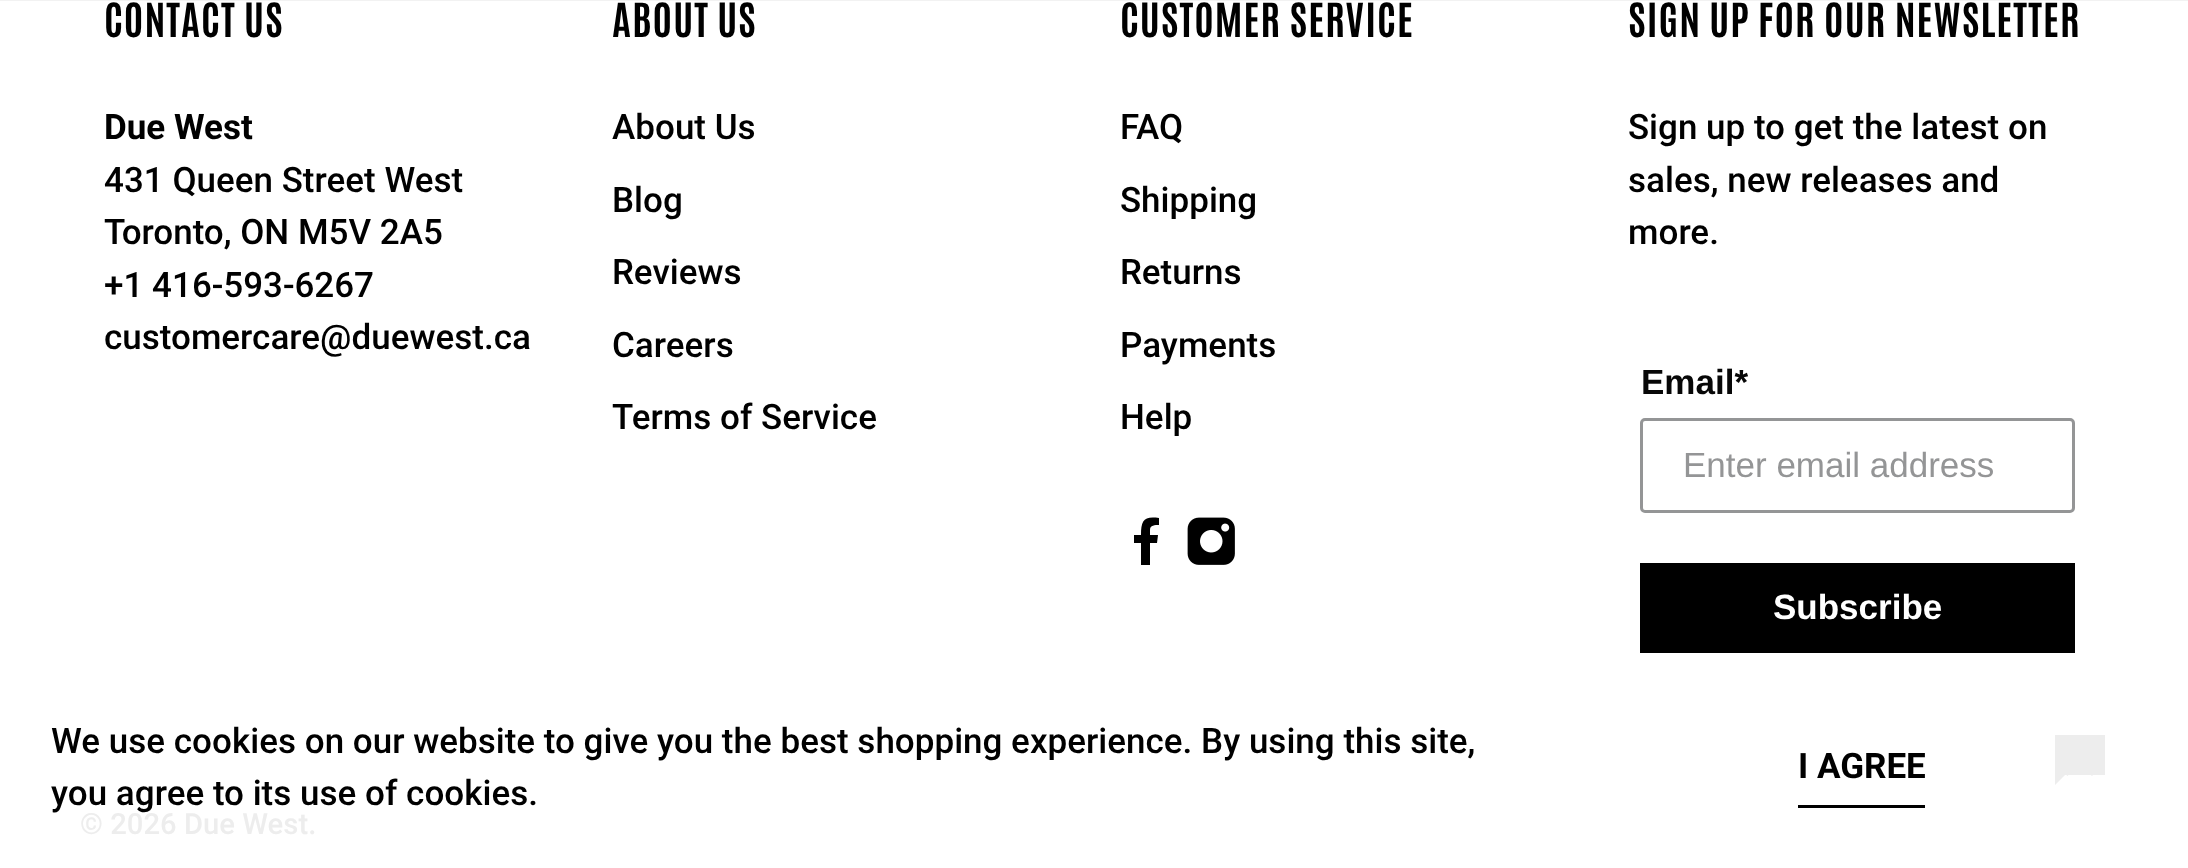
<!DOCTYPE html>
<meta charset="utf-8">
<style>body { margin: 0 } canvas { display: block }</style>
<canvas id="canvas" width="2188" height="868"></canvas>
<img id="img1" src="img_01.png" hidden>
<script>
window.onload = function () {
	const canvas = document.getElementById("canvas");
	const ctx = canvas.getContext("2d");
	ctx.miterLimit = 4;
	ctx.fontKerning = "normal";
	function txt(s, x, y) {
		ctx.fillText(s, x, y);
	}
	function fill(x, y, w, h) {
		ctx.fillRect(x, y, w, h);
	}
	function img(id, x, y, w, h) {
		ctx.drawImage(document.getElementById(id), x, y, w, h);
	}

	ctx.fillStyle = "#FFFFFF";
	fill(0, 0, 2188, 868);
	ctx.fillStyle = "#F2F2F2";
	fill(0, 0, 2188, 1);
	ctx.fillStyle = "#000000";
	ctx.beginPath();
	ctx.moveTo(1150, 530);
	ctx.lineTo(1150, 535);
	ctx.lineTo(1158, 535);
	ctx.lineTo(1157, 543);
	ctx.lineTo(1150, 543);
	ctx.lineTo(1150, 565);
	ctx.lineTo(1141, 565);
	ctx.lineTo(1141, 543);
	ctx.lineTo(1134, 543);
	ctx.lineTo(1134, 535);
	ctx.lineTo(1141, 535);
	ctx.bezierCurveTo(1141, 520, 1144, 516, 1159, 518);
	ctx.lineTo(1159, 525);
	ctx.bezierCurveTo(1155, 525, 1150, 525, 1150, 530);
	ctx.closePath();
	ctx.fill();
	img("img1", 1187, 517, 48, 48);
	ctx.beginPath();
	ctx.roundRect(1641.5, 419.5, 432, 92, 3.5);
	ctx.strokeStyle = "#949596";
	ctx.lineWidth = 3;
	ctx.stroke();
	fill(1640, 563, 435, 90);
	fill(1798, 805, 127, 3);
	ctx.fillStyle = "#EDEDED";
	ctx.beginPath();
	ctx.moveTo(2092, 776);
	ctx.lineTo(2079.5, 764);
	ctx.lineTo(2067.5, 776);
	ctx.lineTo(2063, 772);
	ctx.lineTo(2075.5, 759.5);
	ctx.lineTo(2063, 747.5);
	ctx.lineTo(2067.5, 743);
	ctx.lineTo(2079.5, 755.5);
	ctx.lineTo(2092, 743);
	ctx.lineTo(2096, 747.5);
	ctx.lineTo(2084, 759.5);
	ctx.lineTo(2096, 772);
	ctx.closePath();
	ctx.fill();
	ctx.beginPath();
	ctx.moveTo(2065, 772);
	ctx.lineTo(2064, 772);
	ctx.lineTo(2058, 779);
	ctx.lineTo(2058, 738);
	ctx.lineTo(2102, 738);
	ctx.lineTo(2102, 772);
	ctx.closePath();
	ctx.fill();
	ctx.beginPath();
	ctx.moveTo(2065, 772.5);
	ctx.lineTo(2064, 772.5);
	ctx.lineTo(2057.5, 779);
	ctx.lineTo(2057.5, 737.5);
	ctx.lineTo(2102.5, 737.5);
	ctx.lineTo(2102.5, 772.5);
	ctx.closePath();
	ctx.strokeStyle = "#EDEDED";
	ctx.lineWidth = 5;
	ctx.lineCap = "round";
	ctx.stroke();
	ctx.letterSpacing = "1.05px";
	ctx.font = "bold 40px Antonio";
	ctx.fillStyle = "#000000";
	txt("CONTACT US", 104, 37);
	ctx.letterSpacing = "0px";
	ctx.font = "bold 35px Roboto";
	txt("Due West", 104, 139);
	ctx.font = "500 35px Roboto";
	txt("431 Queen Street West", 104, 192);
	txt("Toronto, ON M5V 2A5", 104, 244);
	txt("+1 416-593-6267", 104, 297);
	txt("customercare@duewest.ca", 104, 349);
	ctx.letterSpacing = "1.05px";
	ctx.font = "bold 40px Antonio";
	txt("ABOUT US", 612, 37);
	ctx.letterSpacing = "0px";
	ctx.font = "500 35px Roboto";
	txt("About Us", 612, 139);
	txt("Blog", 612, 212);
	txt("Reviews", 612, 284);
	txt("Careers", 612, 357);
	txt("Terms of Service", 612, 429);
	ctx.letterSpacing = "1.05px";
	ctx.font = "bold 40px Antonio";
	txt("CUSTOMER SERVICE", 1120, 37);
	ctx.letterSpacing = "0px";
	ctx.font = "500 35px Roboto";
	txt("FAQ", 1120, 139);
	txt("Shipping", 1120, 212);
	txt("Returns", 1120, 284);
	txt("Payments", 1120, 357);
	txt("Help", 1120, 429);
	ctx.letterSpacing = "1.05px";
	ctx.font = "bold 40px Antonio";
	txt("SIGN UP FOR OUR NEWSLETTER", 1628, 37);
	ctx.letterSpacing = "0px";
	ctx.font = "500 35px Roboto";
	txt("Sign up to get the latest on", 1628, 139);
	txt("sales, new releases and", 1628, 192);
	txt("more.", 1628, 244);
	ctx.font = "bold 35px Liberation Sans";
	ctx.fillStyle = "#070707";
	txt("Email*", 1641, 394);
	ctx.font = "35px Liberation Sans";
	ctx.fillStyle = "#949596";
	txt("Enter email address", 1683, 477);
	ctx.font = "bold 35px Liberation Sans";
	ctx.fillStyle = "#FFFFFF";
	txt("Subscribe", 1773, 619);
	ctx.font = "500 29.25px Roboto";
	ctx.fillStyle = "#EDEDED";
	txt("© 2026 Due West.", 80, 834);
	ctx.font = "500 35px Roboto";
	ctx.fillStyle = "#000000";
	txt("We use cookies on our website to give you the best shopping experience. By using this site,", 51, 753);
	txt("you agree to its use of cookies.", 51, 805);
	ctx.font = "bold 35px Roboto";
	txt("I AGREE", 1798, 778);
};
</script>
